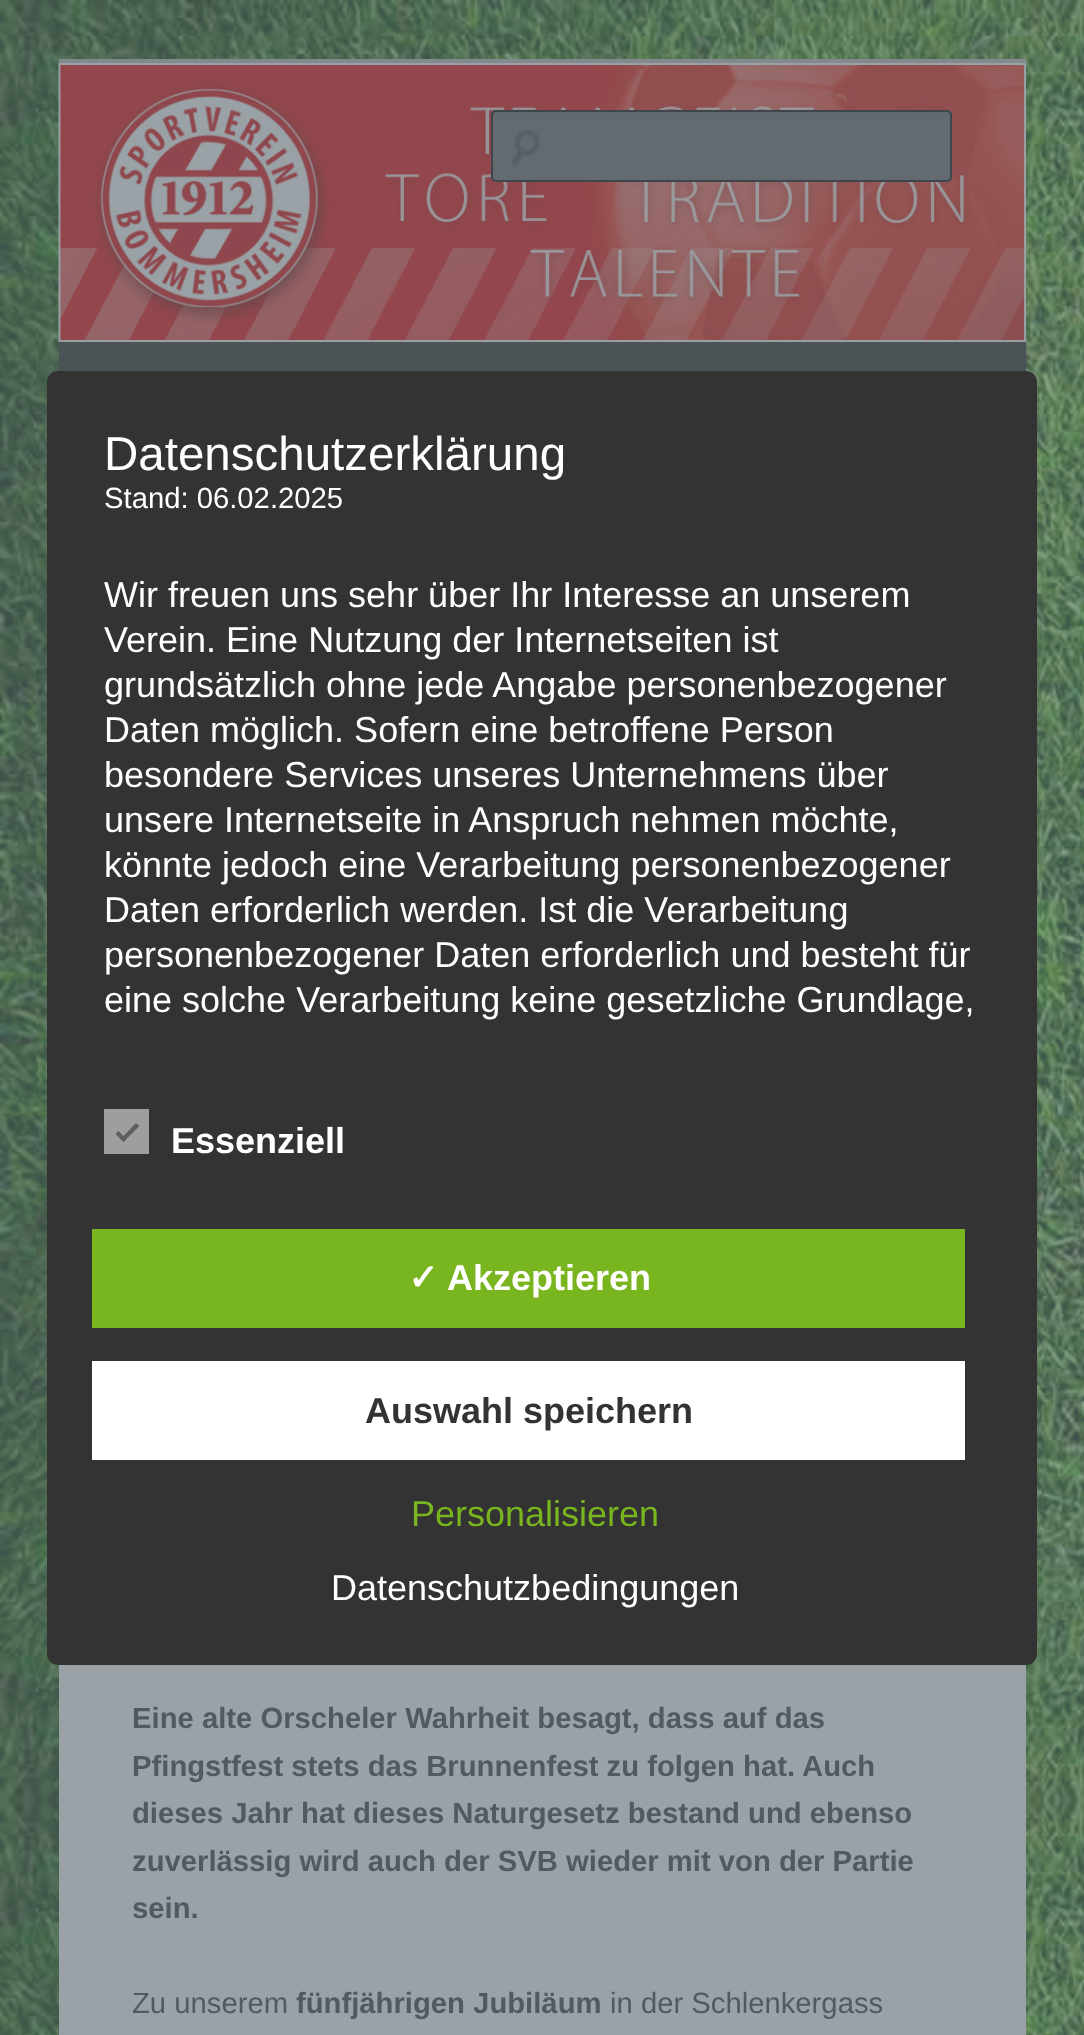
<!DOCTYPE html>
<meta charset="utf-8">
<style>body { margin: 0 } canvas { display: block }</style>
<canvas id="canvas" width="1084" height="2035"></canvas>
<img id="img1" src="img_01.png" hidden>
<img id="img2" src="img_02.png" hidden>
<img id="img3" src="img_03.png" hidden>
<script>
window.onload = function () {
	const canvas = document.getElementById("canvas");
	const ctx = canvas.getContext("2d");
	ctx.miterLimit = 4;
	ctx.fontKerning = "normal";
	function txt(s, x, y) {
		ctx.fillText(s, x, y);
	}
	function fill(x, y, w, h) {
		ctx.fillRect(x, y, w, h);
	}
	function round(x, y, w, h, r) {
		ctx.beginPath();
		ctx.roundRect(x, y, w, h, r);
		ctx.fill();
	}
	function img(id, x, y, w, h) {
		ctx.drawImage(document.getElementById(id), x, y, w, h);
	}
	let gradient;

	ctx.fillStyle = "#FFFFFF";
	fill(0, 0, 1084, 2035);
	img("img1", 0, 0, 1084, 2035);
	ctx.fillStyle = "rgba(63, 70, 75, 0.4)";
	ctx.filter = "blur(2px)";
	ctx.beginPath();
	ctx.rect(59, 344, 967, 180);
	ctx.fill();
	ctx.filter = "none";
	ctx.fillStyle = "#333333";
	round(47, 371, 990, 1294, 11);
	ctx.fillStyle = "#9E9E9E";
	fill(104, 1109, 45, 45);
	ctx.fillStyle = "#5E5E5E";
	ctx.beginPath();
	ctx.moveTo(136, 1123);
	ctx.lineTo(139.5, 1126);
	ctx.lineTo(123.5, 1142);
	ctx.lineTo(120.5, 1139);
	ctx.closePath();
	ctx.fill();
	ctx.beginPath();
	ctx.moveTo(118.5, 1131);
	ctx.lineTo(126.5, 1139);
	ctx.lineTo(123.5, 1142);
	ctx.lineTo(115.5, 1134);
	ctx.closePath();
	ctx.fill();
	ctx.fillStyle = "#79B51F";
	fill(92, 1229, 873, 99);
	ctx.fillStyle = "#FFFFFF";
	fill(92, 1361, 873, 99);
	ctx.fillStyle = "#9BA2A7";
	fill(59, 1665, 967, 370);
	ctx.fillStyle = "#828A8E";
	fill(59, 59, 967, 4);
	img("img2", 58, 63, 968, 279);
	ctx.fillStyle = "#636B70";
	round(491, 110, 461, 72, 5);
	img("img3", 510, 129, 31, 38);
	ctx.fillStyle = "#60686C";
	ctx.beginPath();
	ctx.moveTo(495, 115);
	ctx.lineTo(947, 115);
	ctx.bezierCurveTo(948, 115, 950, 116, 950, 117);
	ctx.lineTo(950, 114);
	ctx.lineTo(949, 113);
	ctx.lineTo(495, 113);
	ctx.bezierCurveTo(493, 113, 493, 115, 493, 117);
	ctx.bezierCurveTo(493, 116, 494, 115, 495, 115);
	ctx.closePath();
	ctx.fill();
	ctx.beginPath();
	ctx.roundRect(492, 111, 459, 70, 4);
	ctx.strokeStyle = "#3F464B";
	ctx.lineWidth = 2;
	ctx.stroke();
	gradient = ctx.createLinearGradient(542, 342, 542, 522);
	gradient.addColorStop(0, "#4C5458");
	gradient.addColorStop(1, "#424A4E");
	ctx.fillStyle = gradient;
	fill(59, 342, 967, 29);
	ctx.font = "47.5px Liberation Sans";
	ctx.fillStyle = "#FFFFFF";
	txt("Datenschutzerklärung", 104, 470);
	ctx.font = "29.25px Liberation Sans";
	txt("Stand: 06.02.2025", 104, 508);
	ctx.font = "36px Liberation Sans";
	txt("Wir freuen uns sehr über Ihr Interesse an unserem", 104, 607);
	txt("Verein. Eine Nutzung der Internetseiten ist", 104, 652);
	txt("grundsätzlich ohne jede Angabe personenbezogener", 104, 697);
	txt("Daten möglich. Sofern eine betroffene Person", 104, 742);
	txt("besondere Services unseres Unternehmens über", 104, 787);
	txt("unsere Internetseite in Anspruch nehmen möchte,", 104, 832);
	txt("könnte jedoch eine Verarbeitung personenbezogener", 104, 877);
	txt("Daten erforderlich werden. Ist die Verarbeitung", 104, 922);
	txt("personenbezogener Daten erforderlich und besteht für", 104, 967);
	txt("eine solche Verarbeitung keine gesetzliche Grundlage,", 104, 1012);
	ctx.font = "bold 36px Liberation Sans";
	txt("Essenziell", 171, 1153);
	ctx.font = "bold 36px DejaVu Sans";
	txt("✓", 408, 1290);
	ctx.font = "bold 36px Liberation Sans";
	txt("Akzeptieren", 447, 1290);
	ctx.fillStyle = "#333333";
	txt("Auswahl speichern", 365, 1423);
	ctx.font = "36px Liberation Sans";
	ctx.fillStyle = "#79B51F";
	txt("Personalisieren", 411, 1526);
	ctx.fillStyle = "#FFFFFF";
	txt("Datenschutzbedingungen", 331, 1600);
	ctx.font = "bold 29.25px Liberation Sans";
	ctx.fillStyle = "#535A5F";
	txt("Eine alte Orscheler Wahrheit besagt, dass auf das", 132, 1728);
	txt("Pfingstfest stets das Brunnenfest zu folgen hat. Auch", 132, 1776);
	txt("dieses Jahr hat dieses Naturgesetz bestand und ebenso", 132, 1823);
	txt("zuverlässig wird auch der SVB wieder mit von der Partie", 132, 1871);
	txt("sein.", 132, 1918);
	ctx.font = "29.25px Liberation Sans";
	txt("Zu unserem", 132, 2013);
	ctx.font = "bold 29.25px Liberation Sans";
	txt("fünfjährigen Jubiläum", 296, 2013);
	ctx.font = "29.25px Liberation Sans";
	txt("in der Schlenkergass", 610, 2013);
};
</script>
